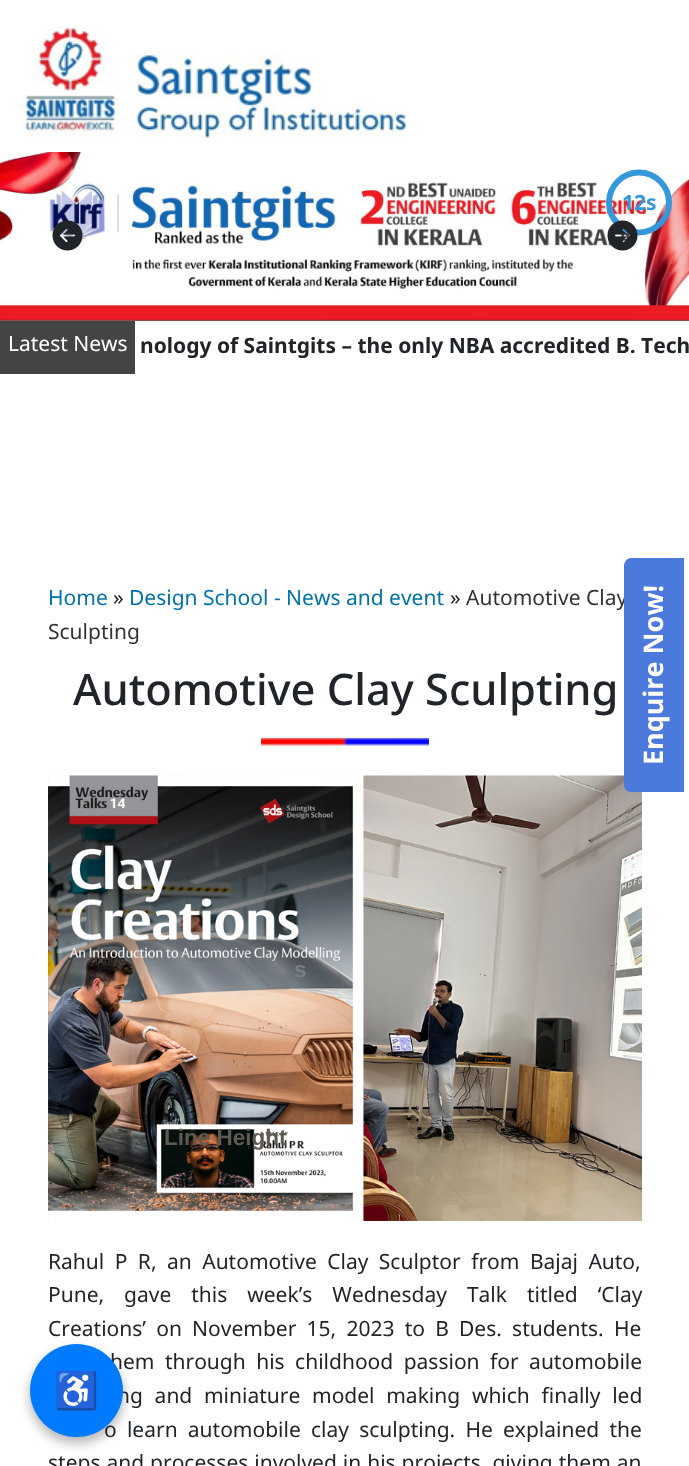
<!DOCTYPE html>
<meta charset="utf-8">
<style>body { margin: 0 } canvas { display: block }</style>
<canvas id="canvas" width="689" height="1466"></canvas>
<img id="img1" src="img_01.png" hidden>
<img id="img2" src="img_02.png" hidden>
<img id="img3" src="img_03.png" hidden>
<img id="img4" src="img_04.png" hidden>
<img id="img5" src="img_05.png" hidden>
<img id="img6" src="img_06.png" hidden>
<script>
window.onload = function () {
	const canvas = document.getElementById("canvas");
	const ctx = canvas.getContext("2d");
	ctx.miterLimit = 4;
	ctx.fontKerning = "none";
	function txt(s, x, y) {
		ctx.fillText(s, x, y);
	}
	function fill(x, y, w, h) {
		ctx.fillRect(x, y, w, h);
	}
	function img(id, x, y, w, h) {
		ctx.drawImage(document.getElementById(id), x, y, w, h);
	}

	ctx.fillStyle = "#FFFFFF";
	fill(0, 0, 689, 1466);
	img("img1", 19, 25, 389, 114);
	img("img2", 0, 152, 689, 169);
	ctx.beginPath();
	ctx.moveTo(609, 202.5);
	ctx.bezierCurveTo(609, 186, 622.5, 172.5, 639, 172.5);
	ctx.bezierCurveTo(655.5, 172.5, 669, 186, 669, 202.5);
	ctx.bezierCurveTo(669, 219, 655.5, 232.5, 639, 232.5);
	ctx.bezierCurveTo(622.5, 232.5, 609, 219, 609, 202.5);
	ctx.strokeStyle = "#3498DB";
	ctx.lineWidth = 6;
	ctx.stroke();
	img("img3", 52, 220, 31, 31);
	img("img4", 607, 220, 31, 31);
	ctx.fillStyle = "#444444";
	fill(0, 321, 135, 53);
	img("img5", 261, 738, 168, 8);
	img("img6", 48, 775, 594, 446);
	ctx.fillStyle = "rgba(0, 0, 0, 0.3)";
	ctx.filter = "blur(6px)";
	ctx.beginPath();
	ctx.roundRect(30, 1350, 93, 93, 46.5);
	ctx.fill();
	ctx.filter = "none";
	ctx.font = "bold 21px Noto Sans";
	ctx.fillStyle = "#3498DB";
	txt("12s", 622, 210);
	ctx.font = "21px Noto Sans";
	ctx.fillStyle = "#FFFFFF";
	txt("Latest News", 8, 351);
	ctx.font = "bold 21px Noto Sans";
	ctx.fillStyle = "#212529";
	txt("nology of Saintgits – the only NBA accredited B. Tech", 140, 353);
	ctx.font = "21px Noto Sans";
	ctx.fillStyle = "#0073AA";
	txt("Home", 48, 605);
	ctx.fillStyle = "#212529";
	txt("»", 113, 605);
	ctx.fillStyle = "#0073AA";
	txt("Design School - News and event", 129, 605);
	ctx.fillStyle = "#212529";
	txt("»", 450, 605);
	ctx.fillStyle = "#333333";
	txt("Automotive Clay", 466, 605);
	txt("Sculpting", 48, 639);
	ctx.font = "500 43.4px Noto Sans";
	ctx.fillStyle = "#212529";
	txt("Automotive Clay Sculpting", 73, 705);
	ctx.wordSpacing = "5px";
	ctx.font = "21px Noto Sans";
	txt("Rahul P R, an Automotive Clay Sculptor from Bajaj Auto,", 48, 1269);
	ctx.wordSpacing = "14.5px";
	txt("Pune, gave this week’s Wednesday Talk titled ‘Clay", 48, 1302);
	ctx.wordSpacing = "4.75px";
	txt("Creations’ on November 15, 2023 to B Des. students. He", 48, 1336);
	ctx.wordSpacing = "5px";
	txt("hem through his childhood passion for automobile", 110, 1369);
	ctx.wordSpacing = "6.25px";
	txt("ng and miniature model making which finally led", 117, 1403);
	ctx.wordSpacing = "4.75px";
	txt("o learn automobile clay sculpting. He explained the", 104, 1437);
	ctx.wordSpacing = "0.5px";
	txt("steps and processes involved in his projects, giving them an", 48, 1470);
	ctx.fillStyle = "#4C79DC";
	ctx.beginPath();
	ctx.moveTo(624, 785);
	ctx.lineTo(624, 566);
	ctx.bezierCurveTo(624, 562, 627, 558, 631, 558);
	ctx.lineTo(684, 558);
	ctx.lineTo(684, 792);
	ctx.lineTo(631, 792);
	ctx.bezierCurveTo(627, 792, 624, 789, 624, 785);
	ctx.closePath();
	ctx.fill();
	ctx.wordSpacing = "0px";
	ctx.font = "bold 27px Noto Sans";
	ctx.fillStyle = "#FFFFFF";
	ctx.save();
	ctx.translate(663, 765);
	ctx.rotate(-90 * Math.PI / 180);
	ctx.fillText("Enquire Now!", 0, 0);
	ctx.restore();
	ctx.font = "bold 22.5px Liberation Sans";
	ctx.fillStyle = "#7A7F85";
	txt("s", 294, 977);
	ctx.fillStyle = "#5E5953";
	txt("Line Height", 164, 1145);
	ctx.fillStyle = "#007BFF";
	ctx.beginPath();
	ctx.arc(76.5, 1390.5, 46.5, 0, Math.PI * 2);
	ctx.fill();
	ctx.font = "36px Noto Color Emoji";
	ctx.fillStyle = "#FFFFFF";
	txt("♿", 54, 1403);
};
</script>
